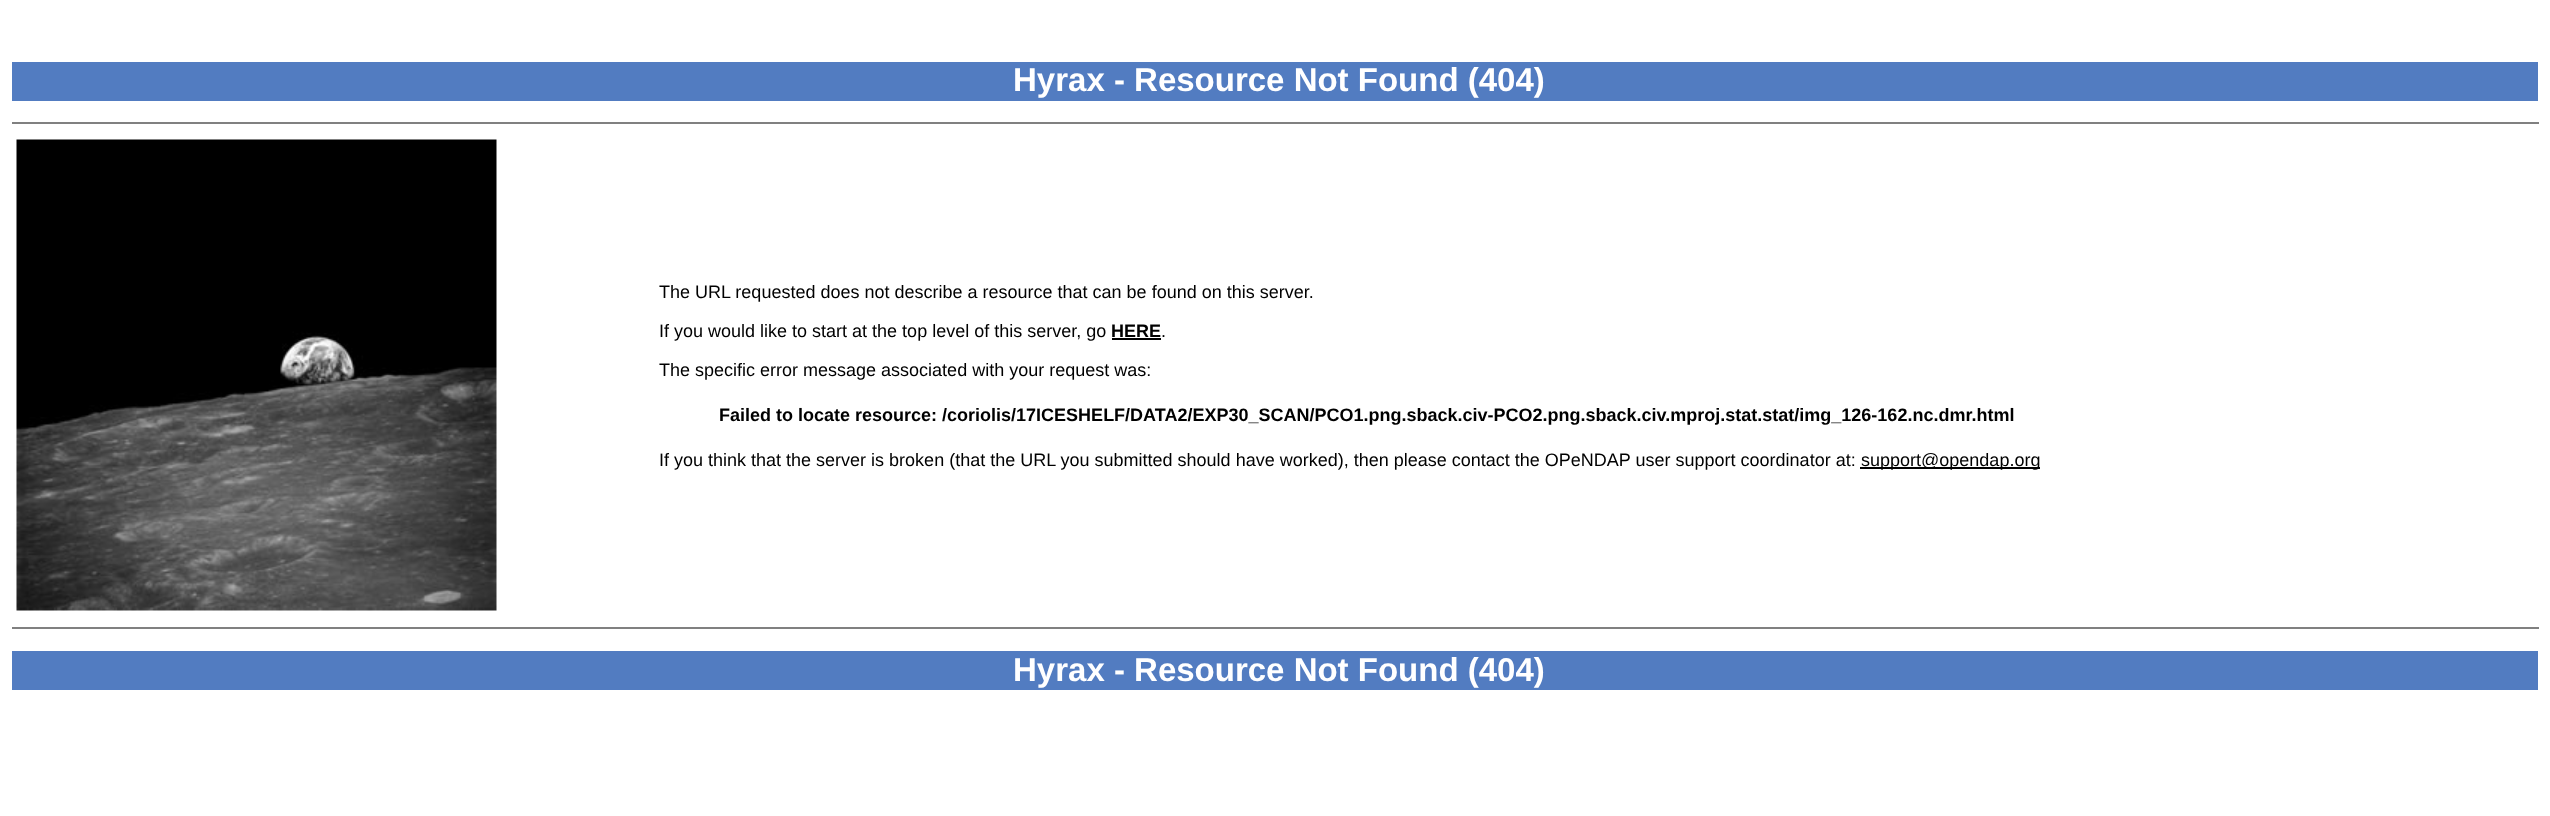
<!DOCTYPE html>
<meta charset="utf-8">
<style>body { margin: 0 } canvas { display: block }</style>
<canvas id="canvas" width="2550" height="816"></canvas>
<img id="img1" src="img_01.png" hidden>
<script>
window.onload = function () {
	const canvas = document.getElementById("canvas");
	const ctx = canvas.getContext("2d");
	ctx.miterLimit = 4;
	ctx.fontKerning = "normal";
	function txt(s, x, y) {
		ctx.fillText(s, x, y);
	}
	function fill(x, y, w, h) {
		ctx.fillRect(x, y, w, h);
	}
	function img(id, x, y, w, h) {
		ctx.drawImage(document.getElementById(id), x, y, w, h);
	}

	ctx.fillStyle = "#FFFFFF";
	fill(0, 0, 2550, 816);
	ctx.fillStyle = "#527CC1";
	fill(12, 62, 2526, 39);
	ctx.fillStyle = "#808080";
	fill(12, 122, 2527, 2);
	img("img1", 16, 139, 481, 472);
	ctx.fillStyle = "#000000";
	fill(1112, 338, 49, 2);
	fill(1860, 467, 180, 2);
	ctx.fillStyle = "#808080";
	fill(12, 627, 2527, 2);
	ctx.fillStyle = "#527CC1";
	fill(12, 651, 2526, 39);
	ctx.font = "bold 33px Liberation Sans";
	ctx.fillStyle = "#FFFFFF";
	txt("Hyrax - Resource Not Found (404)", 1013, 91);
	ctx.font = "18px Liberation Sans";
	ctx.fillStyle = "#000000";
	txt("The URL requested does not describe a resource that can be found on this server.", 659, 298);
	txt("If you would like to start at the top level of this server, go", 659, 337);
	ctx.font = "bold 18px Liberation Sans";
	txt("HERE", 1111, 337);
	ctx.font = "18px Liberation Sans";
	txt(".", 1161, 337);
	txt("The specific error message associated with your request was:", 659, 376);
	ctx.font = "bold 18px Liberation Sans";
	txt("Failed to locate resource: /coriolis/17ICESHELF/DATA2/EXP30_SCAN/PCO1.png.sback.civ-PCO2.png.sback.civ.mproj.stat.stat/img_126-162.nc.dmr.html", 719, 421);
	ctx.font = "18px Liberation Sans";
	txt("If you think that the server is broken (that the URL you submitted should have worked), then please contact the OPeNDAP user support coordinator at:", 659, 466);
	txt("support@opendap.org", 1861, 466);
	ctx.font = "bold 33px Liberation Sans";
	ctx.fillStyle = "#FFFFFF";
	txt("Hyrax - Resource Not Found (404)", 1013, 681);
};
</script>
